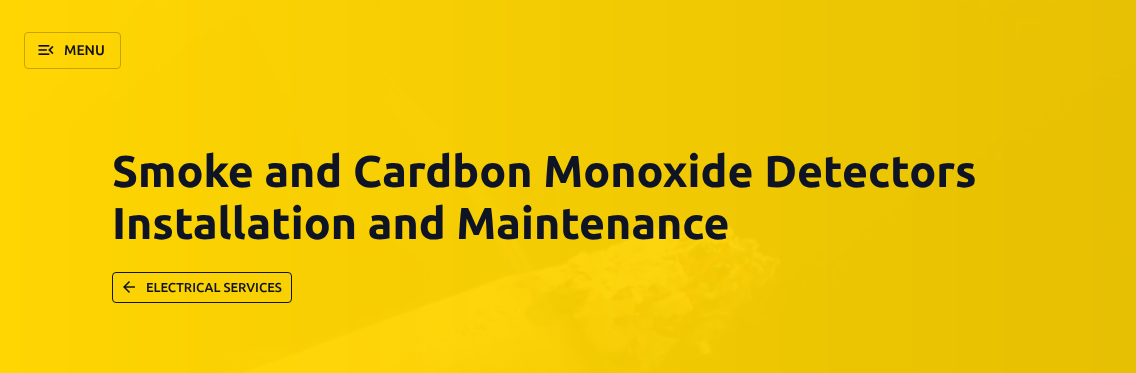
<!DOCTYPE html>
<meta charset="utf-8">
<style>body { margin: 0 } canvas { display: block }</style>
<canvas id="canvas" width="1136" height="373"></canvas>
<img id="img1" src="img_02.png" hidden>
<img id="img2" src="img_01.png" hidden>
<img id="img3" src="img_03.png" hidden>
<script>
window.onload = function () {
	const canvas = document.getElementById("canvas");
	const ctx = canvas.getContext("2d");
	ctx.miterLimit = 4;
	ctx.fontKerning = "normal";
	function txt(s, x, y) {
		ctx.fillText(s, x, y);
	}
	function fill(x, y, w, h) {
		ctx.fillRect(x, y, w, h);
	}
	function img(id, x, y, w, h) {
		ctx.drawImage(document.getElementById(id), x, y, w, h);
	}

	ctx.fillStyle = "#FFFFFF";
	fill(0, 0, 1136, 373);
	img("img1", 0, 0, 1136, 373);
	ctx.beginPath();
	ctx.roundRect(24.5, 32.5, 96, 36, 3.5);
	ctx.strokeStyle = "#C4A402";
	ctx.stroke();
	img("img2", 38, 45, 16, 10);
	ctx.beginPath();
	ctx.roundRect(112.5, 272.5, 179, 30, 3.5);
	ctx.strokeStyle = "#0E1423";
	ctx.stroke();
	img("img3", 123, 281, 12, 12);
	ctx.font = "500 14px Ubuntu";
	ctx.fillStyle = "#101012";
	txt("MENU", 64, 55);
	ctx.font = "bold 44.6px Ubuntu";
	ctx.fillStyle = "#0E1423";
	txt("Smoke and Cardbon Monoxide Detectors", 112, 187);
	txt("Installation and Maintenance", 112, 239);
	ctx.font = "500 13px Ubuntu";
	txt("ELECTRICAL SERVICES", 146, 292);
};
</script>
